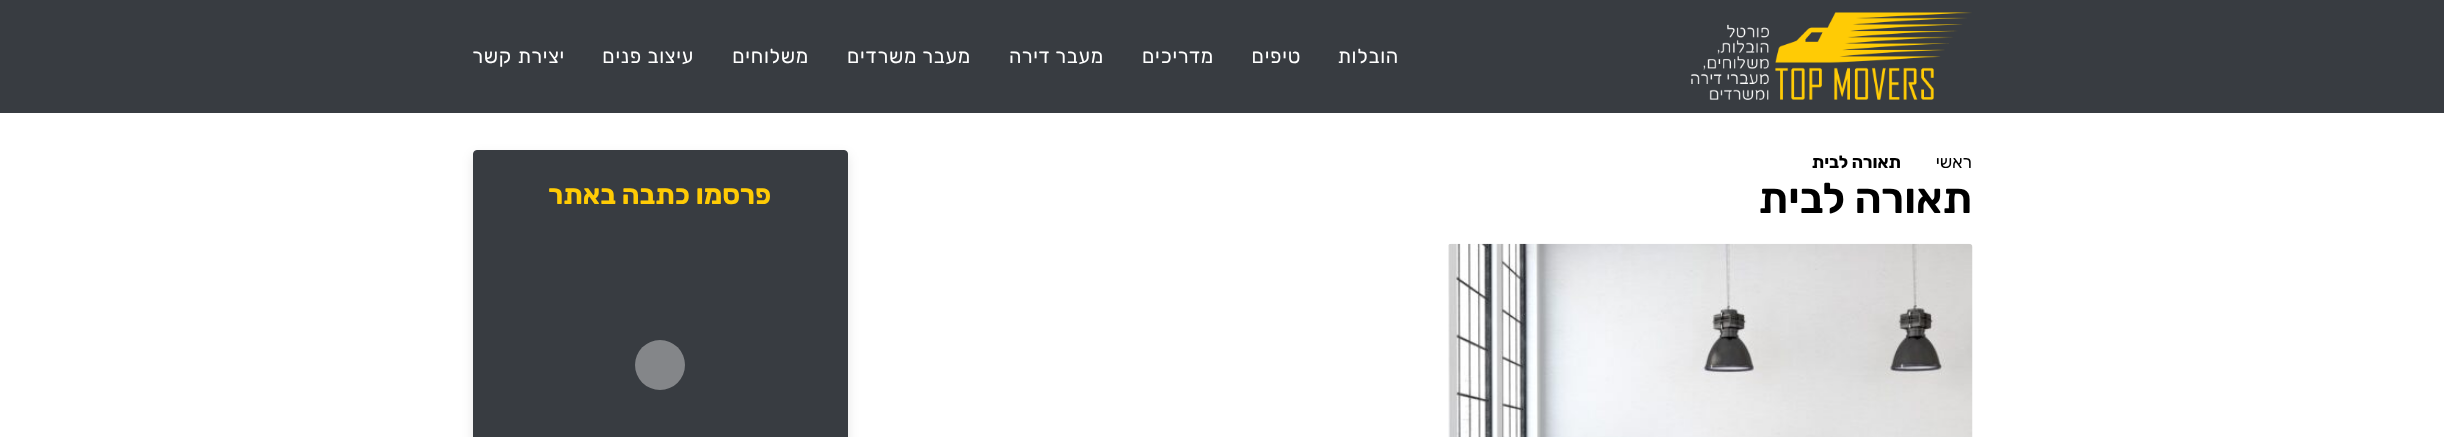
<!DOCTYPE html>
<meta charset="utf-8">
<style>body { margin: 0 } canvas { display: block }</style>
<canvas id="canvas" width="2444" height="437"></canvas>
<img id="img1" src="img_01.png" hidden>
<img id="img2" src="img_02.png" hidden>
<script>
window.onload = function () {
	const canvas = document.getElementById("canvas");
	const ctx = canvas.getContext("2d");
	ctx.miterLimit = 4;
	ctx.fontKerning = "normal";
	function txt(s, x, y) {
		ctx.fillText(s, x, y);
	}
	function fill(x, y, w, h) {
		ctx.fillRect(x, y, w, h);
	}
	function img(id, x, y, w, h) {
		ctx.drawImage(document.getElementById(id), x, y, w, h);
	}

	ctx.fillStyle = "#FFFFFF";
	fill(0, 0, 2444, 437);
	ctx.fillStyle = "#383C41";
	fill(0, 0, 2444, 113);
	img("img1", 1691, 12, 281, 88);
	img("img2", 1448, 243, 525, 194);
	ctx.fillStyle = "rgba(0, 0, 0, 0.1)";
	ctx.filter = "blur(6px)";
	ctx.beginPath();
	ctx.roundRect(473, 155, 375, 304, 4);
	ctx.fill();
	ctx.filter = "none";
	ctx.fillStyle = "#383C41";
	ctx.beginPath();
	ctx.roundRect(473.5, 150.5, 374, 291, 3.5);
	ctx.fill();
	ctx.strokeStyle = "#383C41";
	ctx.stroke();
	ctx.fillStyle = "#848689";
	ctx.beginPath();
	ctx.arc(660, 365, 25, 0, Math.PI * 2);
	ctx.fill();
	ctx.letterSpacing = "0.75px";
	ctx.direction = "rtl";
	ctx.font = "20px Rubik";
	ctx.fillStyle = "#FFFFFF";
	txt("הובלות", 1399, 63);
	txt("טיפים", 1301, 63);
	txt("מדריכים", 1214, 63);
	txt("מעבר דירה", 1104, 63);
	txt("מעבר משרדים", 971, 63);
	txt("משלוחים", 809, 63);
	txt("עיצוב פנים", 694, 63);
	txt("יצירת קשר", 565, 63);
	ctx.letterSpacing = "0px";
	ctx.font = "17.5px Rubik";
	ctx.fillStyle = "#000000";
	txt("ראשי", 1972, 168);
	ctx.font = "bold 17.5px Rubik";
	txt("תאורה לבית", 1901, 168);
	ctx.font = "600 42.5px Rubik";
	txt("תאורה לבית", 1972, 213);
	ctx.font = "bold 27.5px Rubik";
	ctx.fillStyle = "#FFCB05";
	txt("פרסמו כתבה באתר", 771, 204);
};
</script>
